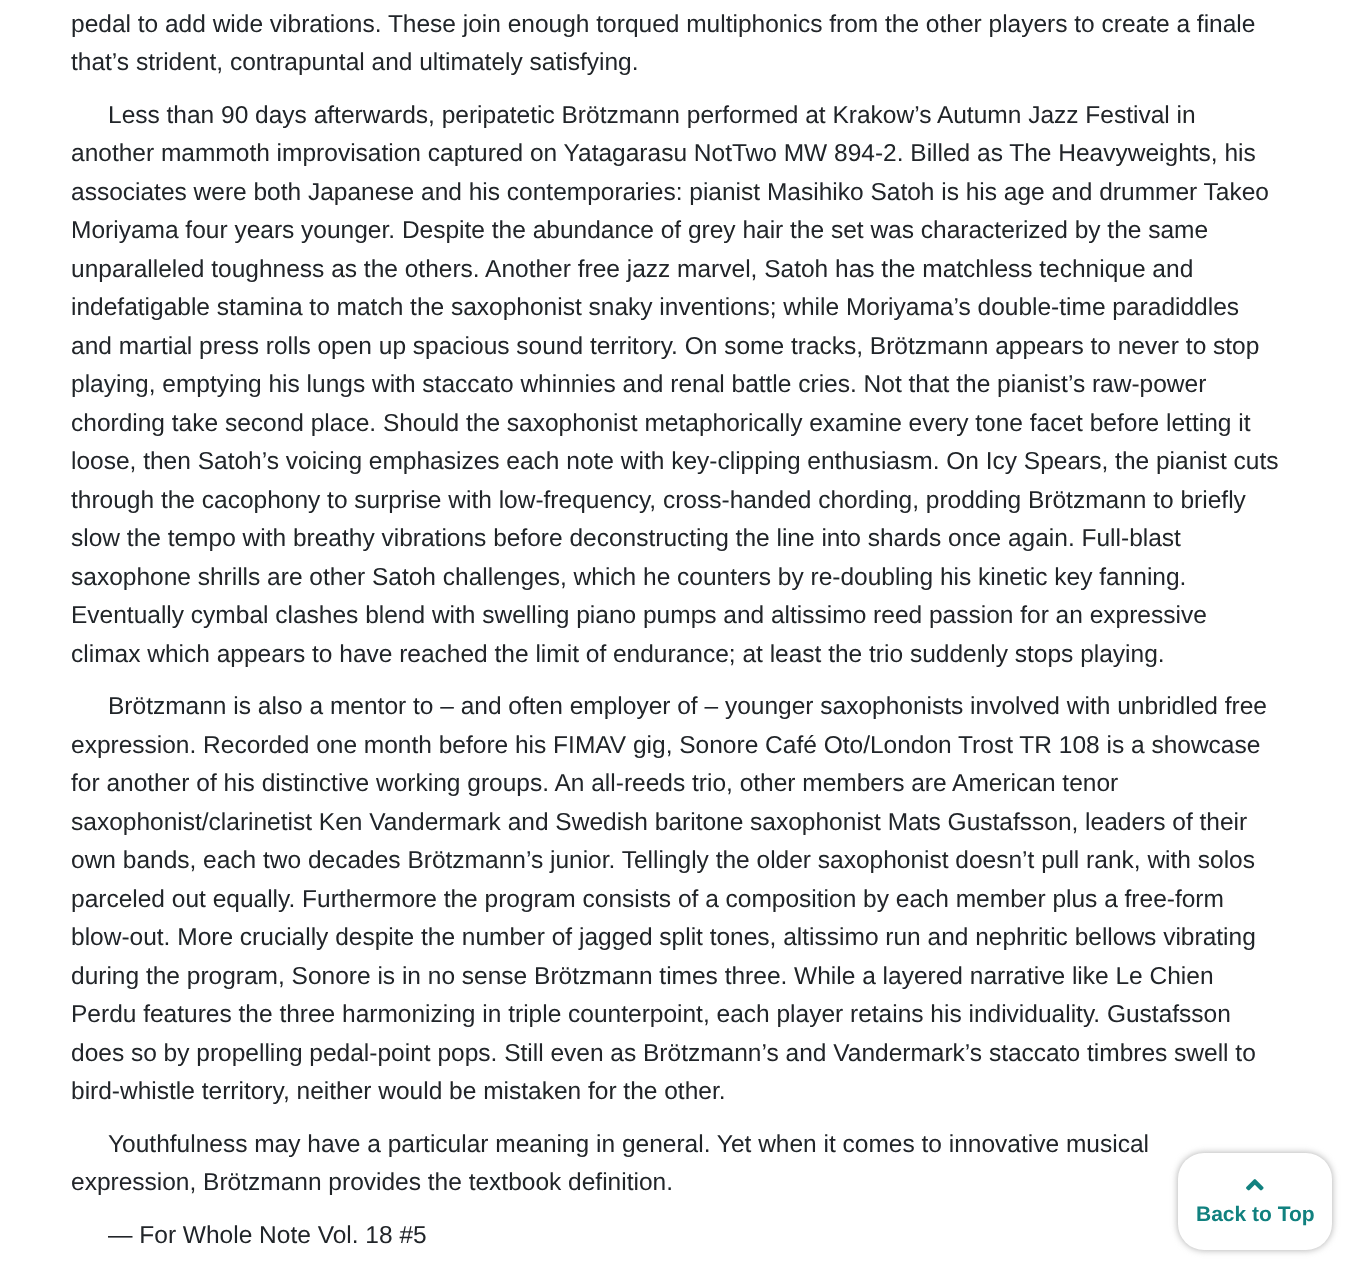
<!DOCTYPE html>
<meta charset="utf-8">
<style>body { margin: 0 } canvas { display: block }</style>
<canvas id="canvas" width="1348" height="1267"></canvas>
<img id="img1" src="img_01.png" hidden>
<script>
window.onload = function () {
	const canvas = document.getElementById("canvas");
	const ctx = canvas.getContext("2d");
	ctx.miterLimit = 4;
	ctx.fontKerning = "normal";
	function txt(s, x, y) {
		ctx.fillText(s, x, y);
	}
	function fill(x, y, w, h) {
		ctx.fillRect(x, y, w, h);
	}
	function round(x, y, w, h, r) {
		ctx.beginPath();
		ctx.roundRect(x, y, w, h, r);
		ctx.fill();
	}
	function img(id, x, y, w, h) {
		ctx.drawImage(document.getElementById(id), x, y, w, h);
	}

	ctx.fillStyle = "#FFFFFF";
	fill(0, 0, 1348, 1267);
	ctx.fillStyle = "#AAAAAA";
	ctx.filter = "blur(3.5px)";
	ctx.beginPath();
	ctx.roundRect(1178, 1153, 154, 97, 26);
	ctx.fill();
	ctx.filter = "none";
	ctx.fillStyle = "#FFFFFF";
	round(1178, 1153, 154, 97, 26);
	img("img1", 1246, 1179, 18, 12);
	ctx.font = "24.5px Liberation Sans";
	ctx.fillStyle = "#212529";
	txt("pedal to add wide vibrations. These join enough torqued multiphonics from the other players to create a finale", 71, 32);
	txt("that’s strident, contrapuntal and ultimately satisfying.", 71, 70);
	txt("Less than 90 days afterwards, peripatetic Brötzmann performed at Krakow’s Autumn Jazz Festival in", 108, 123);
	txt("another mammoth improvisation captured on Yatagarasu NotTwo MW 894-2. Billed as The Heavyweights, his", 71, 161);
	txt("associates were both Japanese and his contemporaries: pianist Masihiko Satoh is his age and drummer Takeo", 71, 200);
	txt("Moriyama four years younger. Despite the abundance of grey hair the set was characterized by the same", 71, 238);
	txt("unparalleled toughness as the others. Another free jazz marvel, Satoh has the matchless technique and", 71, 277);
	txt("indefatigable stamina to match the saxophonist snaky inventions; while Moriyama’s double-time paradiddles", 71, 315);
	txt("and martial press rolls open up spacious sound territory. On some tracks, Brötzmann appears to never to stop", 71, 354);
	txt("playing, emptying his lungs with staccato whinnies and renal battle cries. Not that the pianist’s raw-power", 71, 392);
	txt("chording take second place. Should the saxophonist metaphorically examine every tone facet before letting it", 71, 431);
	txt("loose, then Satoh’s voicing emphasizes each note with key-clipping enthusiasm. On Icy Spears, the pianist cuts", 71, 469);
	txt("through the cacophony to surprise with low-frequency, cross-handed chording, prodding Brötzmann to briefly", 71, 508);
	txt("slow the tempo with breathy vibrations before deconstructing the line into shards once again. Full-blast", 71, 546);
	txt("saxophone shrills are other Satoh challenges, which he counters by re-doubling his kinetic key fanning.", 71, 585);
	txt("Eventually cymbal clashes blend with swelling piano pumps and altissimo reed passion for an expressive", 71, 623);
	txt("climax which appears to have reached the limit of endurance; at least the trio suddenly stops playing.", 71, 662);
	txt("Brötzmann is also a mentor to – and often employer of – younger saxophonists involved with unbridled free", 108, 714);
	txt("expression. Recorded one month before his FIMAV gig, Sonore Café Oto/London Trost TR 108 is a showcase", 71, 753);
	txt("for another of his distinctive working groups. An all-reeds trio, other members are American tenor", 71, 791);
	txt("saxophonist/clarinetist Ken Vandermark and Swedish baritone saxophonist Mats Gustafsson, leaders of their", 71, 830);
	txt("own bands, each two decades Brötzmann’s junior. Tellingly the older saxophonist doesn’t pull rank, with solos", 71, 868);
	txt("parceled out equally. Furthermore the program consists of a composition by each member plus a free-form", 71, 907);
	txt("blow-out. More crucially despite the number of jagged split tones, altissimo run and nephritic bellows vibrating", 71, 945);
	txt("during the program, Sonore is in no sense Brötzmann times three. While a layered narrative like Le Chien", 71, 984);
	txt("Perdu features the three harmonizing in triple counterpoint, each player retains his individuality. Gustafsson", 71, 1022);
	txt("does so by propelling pedal-point pops. Still even as Brötzmann’s and Vandermark’s staccato timbres swell to", 71, 1061);
	txt("bird-whistle territory, neither would be mistaken for the other.", 71, 1099);
	txt("Youthfulness may have a particular meaning in general. Yet when it comes to innovative musical", 108, 1152);
	txt("expression, Brötzmann provides the textbook definition.", 71, 1190);
	txt("— For Whole Note Vol. 18 #5", 108, 1243);
	ctx.font = "bold 21px Liberation Sans";
	ctx.fillStyle = "#11817F";
	txt("Back to Top", 1196, 1221);
};
</script>
